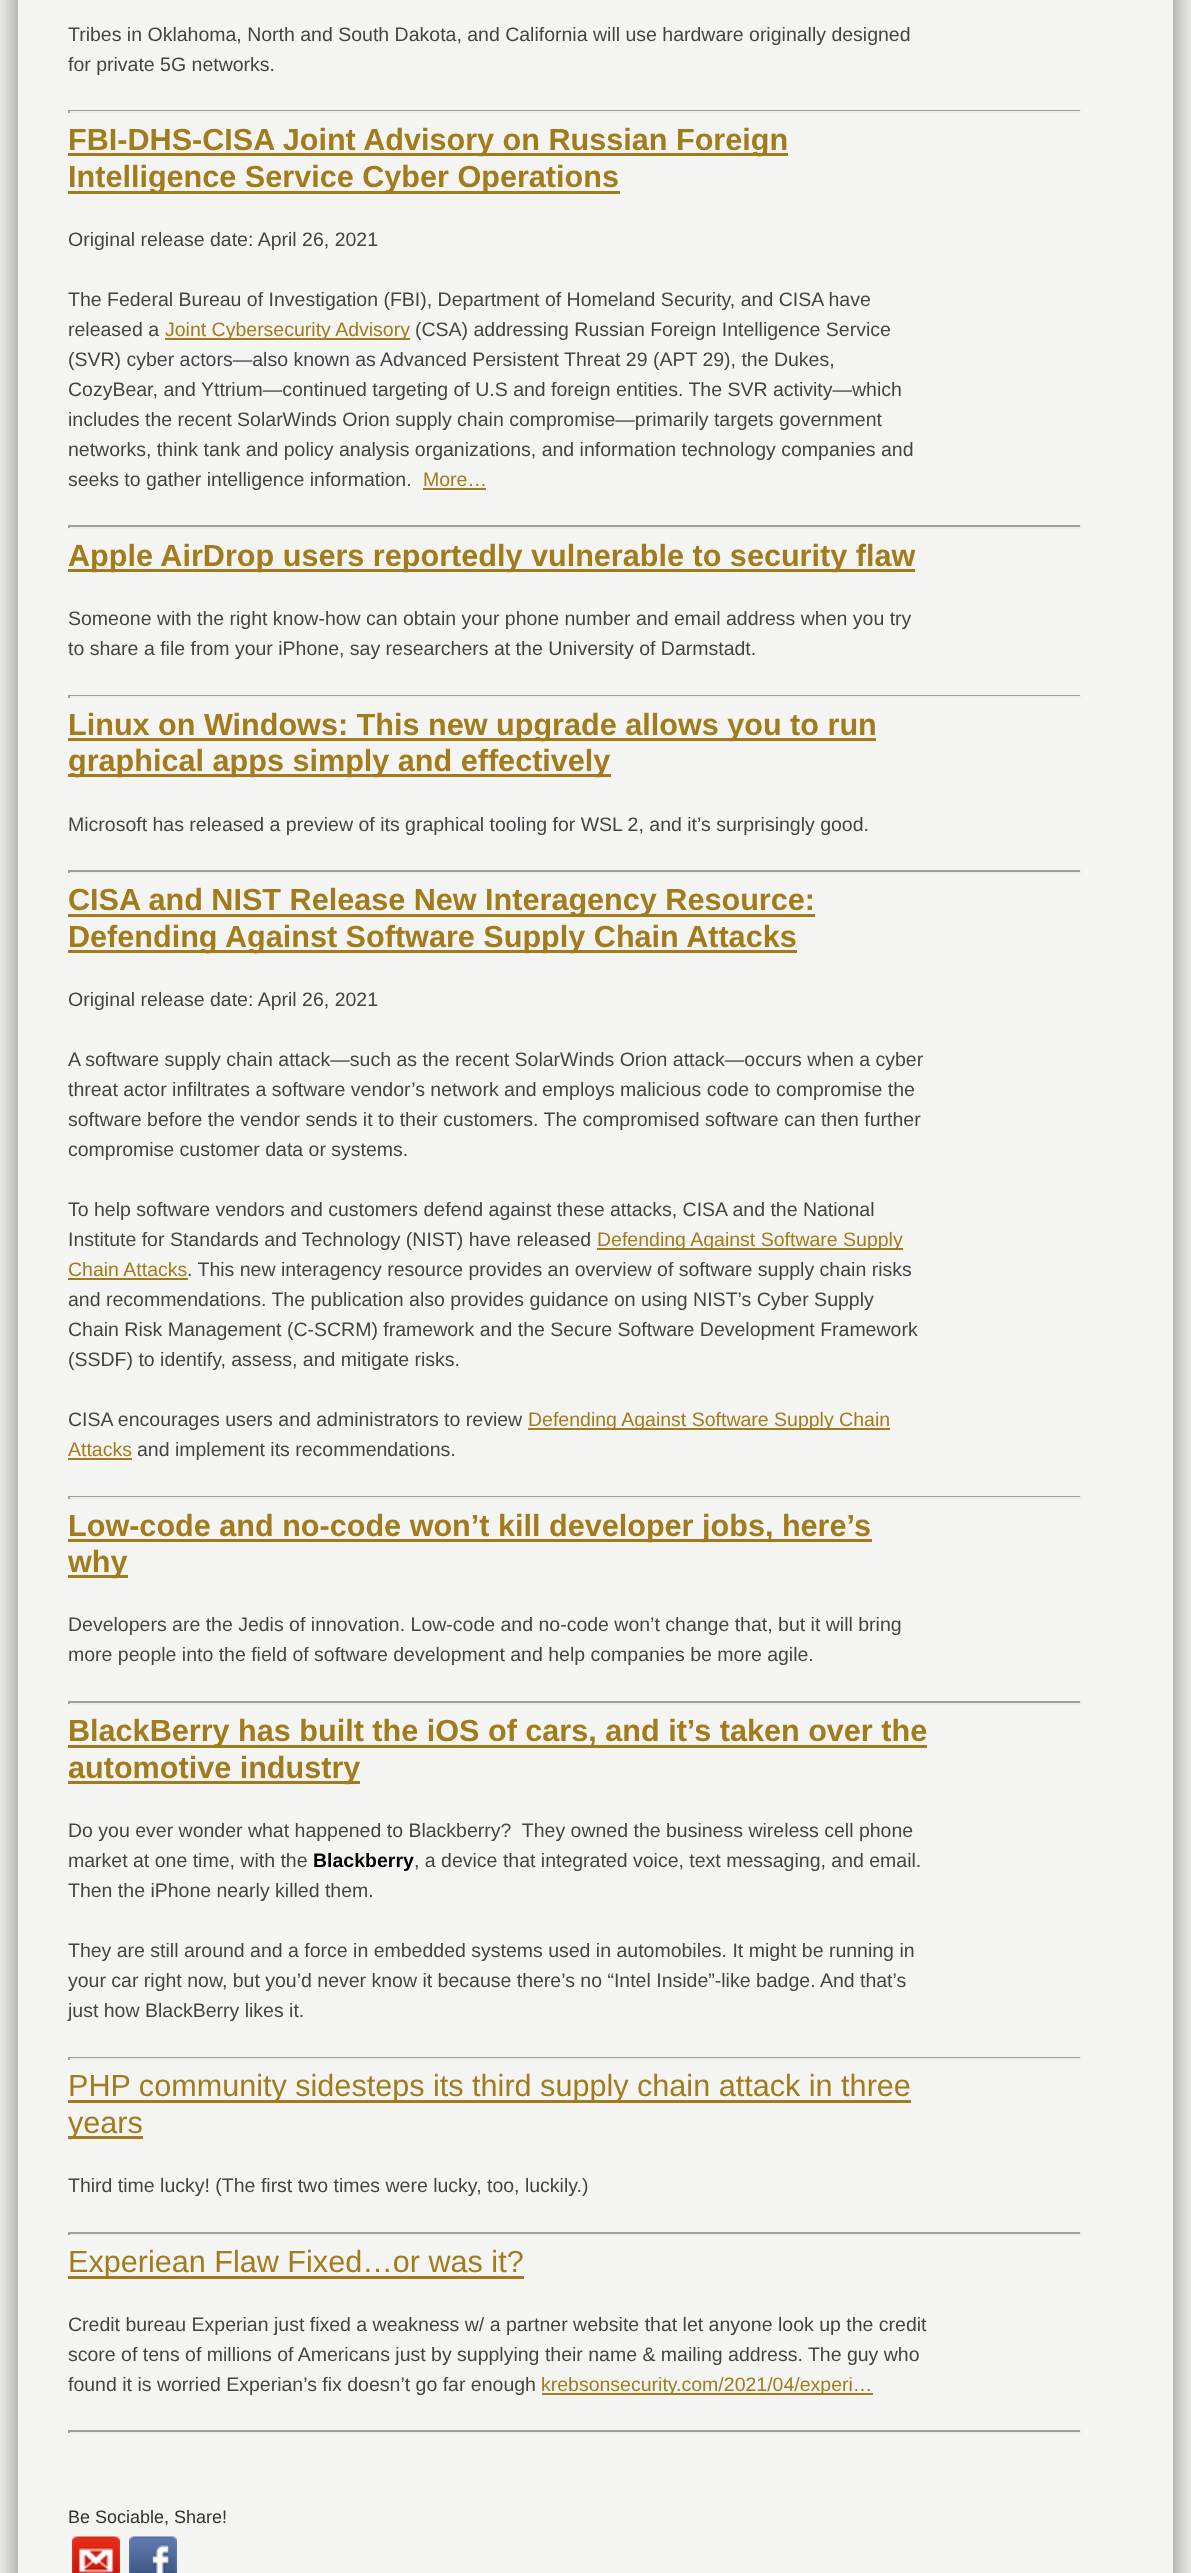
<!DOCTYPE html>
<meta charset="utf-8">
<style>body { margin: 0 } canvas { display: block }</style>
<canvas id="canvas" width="1191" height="2573"></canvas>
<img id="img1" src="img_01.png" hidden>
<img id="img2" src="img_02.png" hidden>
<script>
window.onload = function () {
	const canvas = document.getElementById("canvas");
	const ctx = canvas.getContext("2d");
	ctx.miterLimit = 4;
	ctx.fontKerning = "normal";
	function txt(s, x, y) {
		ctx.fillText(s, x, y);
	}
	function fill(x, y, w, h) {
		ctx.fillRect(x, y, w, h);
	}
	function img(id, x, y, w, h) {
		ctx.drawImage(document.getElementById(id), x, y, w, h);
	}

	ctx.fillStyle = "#F4F4F2";
	fill(0, 0, 1191, 2573);
	ctx.save();
	ctx.beginPath();
	ctx.moveTo(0, 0);
	ctx.lineTo(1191, 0);
	ctx.lineTo(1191, 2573);
	ctx.lineTo(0, 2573);
	ctx.closePath();
	ctx.moveTo(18, -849);
	ctx.lineTo(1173, -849);
	ctx.lineTo(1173, 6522);
	ctx.lineTo(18, 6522);
	ctx.closePath();
	ctx.clip("evenodd");
	ctx.fillStyle = "rgba(0, 0, 0, 0.5)";
	ctx.filter = "blur(15px)";
	ctx.beginPath();
	ctx.rect(18, -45, 1155, 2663);
	ctx.fill();
	ctx.filter = "none";
	ctx.restore();
	ctx.fillStyle = "#9F9F9F";
	fill(68, 110, 1014, 1);
	ctx.fillStyle = "#EEEEEE";
	fill(1080, 110, 2, 3);
	fill(68, 111, 1014, 2);
	ctx.fillStyle = "#9F9F9F";
	fill(68, 110, 2, 3);
	ctx.fillStyle = "#A17B1C";
	fill(68, 153, 720, 3);
	fill(68, 191, 552, 3);
	fill(165, 338, 245, 2);
	fill(423, 488, 63, 2);
	ctx.fillStyle = "#9F9F9F";
	fill(68, 525, 1014, 2);
	ctx.fillStyle = "#EEEEEE";
	fill(1080, 525, 2, 3);
	fill(68, 527, 1014, 2);
	ctx.fillStyle = "#9F9F9F";
	fill(68, 525, 2, 3);
	ctx.fillStyle = "#A17B1C";
	fill(68, 569, 847, 3);
	ctx.fillStyle = "#9F9F9F";
	fill(68, 695, 1014, 1);
	ctx.fillStyle = "#EEEEEE";
	fill(1080, 695, 2, 3);
	fill(68, 696, 1014, 2);
	ctx.fillStyle = "#9F9F9F";
	fill(68, 695, 2, 3);
	ctx.fillStyle = "#A17B1C";
	fill(68, 738, 808, 3);
	fill(68, 774, 543, 3);
	ctx.fillStyle = "#9F9F9F";
	fill(68, 870, 1014, 2);
	ctx.fillStyle = "#EEEEEE";
	fill(1080, 870, 2, 3);
	fill(68, 872, 1014, 2);
	ctx.fillStyle = "#9F9F9F";
	fill(68, 870, 2, 3);
	ctx.fillStyle = "#A17B1C";
	fill(68, 914, 747, 3);
	fill(68, 950, 729, 3);
	fill(597, 1248, 306, 2);
	fill(68, 1278, 120, 2);
	fill(528, 1428, 362, 2);
	fill(68, 1458, 64, 2);
	ctx.fillStyle = "#9F9F9F";
	fill(68, 1496, 1014, 1);
	ctx.fillStyle = "#EEEEEE";
	fill(1080, 1496, 2, 3);
	fill(68, 1497, 1014, 2);
	ctx.fillStyle = "#9F9F9F";
	fill(68, 1496, 2, 3);
	ctx.fillStyle = "#A17B1C";
	fill(68, 1539, 804, 3);
	fill(68, 1575, 60, 3);
	ctx.fillStyle = "#9F9F9F";
	fill(68, 1701, 1014, 2);
	ctx.fillStyle = "#EEEEEE";
	fill(1080, 1701, 2, 3);
	fill(68, 1703, 1014, 2);
	ctx.fillStyle = "#9F9F9F";
	fill(68, 1701, 2, 3);
	ctx.fillStyle = "#A17B1C";
	fill(68, 1745, 859, 3);
	fill(68, 1781, 292, 3);
	ctx.fillStyle = "#9F9F9F";
	fill(68, 2057, 1014, 1);
	ctx.fillStyle = "#EEEEEE";
	fill(1080, 2057, 2, 3);
	fill(68, 2058, 1014, 2);
	ctx.fillStyle = "#9F9F9F";
	fill(68, 2057, 2, 3);
	ctx.fillStyle = "#A17B1C";
	fill(68, 2100, 843, 3);
	fill(68, 2136, 75, 3);
	ctx.fillStyle = "#9F9F9F";
	fill(68, 2232, 1014, 2);
	ctx.fillStyle = "#EEEEEE";
	fill(1080, 2232, 2, 3);
	fill(68, 2234, 1014, 2);
	ctx.fillStyle = "#9F9F9F";
	fill(68, 2232, 2, 3);
	ctx.fillStyle = "#A17B1C";
	fill(68, 2276, 456, 3);
	fill(542, 2393, 331, 2);
	ctx.fillStyle = "#9F9F9F";
	fill(68, 2430, 1014, 2);
	ctx.fillStyle = "#EEEEEE";
	fill(1080, 2430, 2, 3);
	fill(68, 2432, 1014, 2);
	ctx.fillStyle = "#9F9F9F";
	fill(68, 2430, 2, 3);
	img("img1", 72, 2536, 48, 37);
	img("img2", 129, 2536, 48, 37);
	ctx.font = "19.5px Liberation Sans";
	ctx.fillStyle = "#444444";
	txt("Tribes in Oklahoma, North and South Dakota, and California will use hardware originally designed", 68, 41);
	txt("for private 5G networks.", 68, 71);
	ctx.font = "bold 30.6px Liberation Sans";
	ctx.fillStyle = "#A17B1C";
	txt("FBI-DHS-CISA Joint Advisory on Russian Foreign", 68, 150);
	txt("Intelligence Service Cyber Operations", 68, 187);
	ctx.font = "19.5px Liberation Sans";
	ctx.fillStyle = "#444444";
	txt("Original release date: April 26, 2021", 68, 246);
	txt("The Federal Bureau of Investigation (FBI), Department of Homeland Security, and CISA have", 68, 306);
	txt("released a", 68, 336);
	ctx.fillStyle = "#A17B1C";
	txt("Joint Cybersecurity Advisory", 165, 336);
	ctx.fillStyle = "#444444";
	txt("(CSA) addressing Russian Foreign Intelligence Service", 415, 336);
	txt("(SVR) cyber actors—also known as Advanced Persistent Threat 29 (APT 29), the Dukes,", 68, 366);
	txt("CozyBear, and Yttrium—continued targeting of U.S and foreign entities. The SVR activity—which", 68, 396);
	txt("includes the recent SolarWinds Orion supply chain compromise—primarily targets government", 68, 426);
	txt("networks, think tank and policy analysis organizations, and information technology companies and", 68, 456);
	txt("seeks to gather intelligence information.", 68, 486);
	ctx.fillStyle = "#A17B1C";
	txt("More…", 423, 486);
	ctx.font = "bold 30.6px Liberation Sans";
	txt("Apple AirDrop users reportedly vulnerable to security flaw", 68, 566);
	ctx.font = "19.5px Liberation Sans";
	ctx.fillStyle = "#444444";
	txt("Someone with the right know-how can obtain your phone number and email address when you try", 68, 625);
	txt("to share a file from your iPhone, say researchers at the University of Darmstadt.", 68, 655);
	ctx.font = "bold 30.6px Liberation Sans";
	ctx.fillStyle = "#A17B1C";
	txt("Linux on Windows: This new upgrade allows you to run", 68, 735);
	txt("graphical apps simply and effectively", 68, 771);
	ctx.font = "19.5px Liberation Sans";
	ctx.fillStyle = "#444444";
	txt("Microsoft has released a preview of its graphical tooling for WSL 2, and it’s surprisingly good.", 68, 831);
	ctx.font = "bold 30.6px Liberation Sans";
	ctx.fillStyle = "#A17B1C";
	txt("CISA and NIST Release New Interagency Resource:", 68, 910);
	txt("Defending Against Software Supply Chain Attacks", 68, 947);
	ctx.font = "19.5px Liberation Sans";
	ctx.fillStyle = "#444444";
	txt("Original release date: April 26, 2021", 68, 1006);
	txt("A software supply chain attack—such as the recent SolarWinds Orion attack—occurs when a cyber", 68, 1066);
	txt("threat actor infiltrates a software vendor’s network and employs malicious code to compromise the", 68, 1096);
	txt("software before the vendor sends it to their customers. The compromised software can then further", 68, 1126);
	txt("compromise customer data or systems.", 68, 1156);
	txt("To help software vendors and customers defend against these attacks, CISA and the National", 68, 1216);
	txt("Institute for Standards and Technology (NIST) have released", 68, 1246);
	ctx.fillStyle = "#A17B1C";
	txt("Defending Against Software Supply", 597, 1246);
	txt("Chain Attacks", 68, 1276);
	ctx.fillStyle = "#444444";
	txt(". This new interagency resource provides an overview of software supply chain risks", 187, 1276);
	txt("and recommendations. The publication also provides guidance on using NIST’s Cyber Supply", 68, 1306);
	txt("Chain Risk Management (C-SCRM) framework and the Secure Software Development Framework", 68, 1336);
	txt("(SSDF) to identify, assess, and mitigate risks.", 68, 1366);
	txt("CISA encourages users and administrators to review", 68, 1426);
	ctx.fillStyle = "#A17B1C";
	txt("Defending Against Software Supply Chain", 528, 1426);
	txt("Attacks", 68, 1456);
	ctx.fillStyle = "#444444";
	txt("and implement its recommendations.", 137, 1456);
	ctx.font = "bold 30.6px Liberation Sans";
	ctx.fillStyle = "#A17B1C";
	txt("Low-code and no-code won’t kill developer jobs, here’s", 68, 1536);
	txt("why", 68, 1572);
	ctx.font = "19.5px Liberation Sans";
	ctx.fillStyle = "#444444";
	txt("Developers are the Jedis of innovation. Low-code and no-code won’t change that, but it will bring", 68, 1631);
	txt("more people into the field of software development and help companies be more agile.", 68, 1661);
	ctx.font = "bold 30.6px Liberation Sans";
	ctx.fillStyle = "#A17B1C";
	txt("BlackBerry has built the iOS of cars, and it’s taken over the", 68, 1741);
	txt("automotive industry", 68, 1778);
	ctx.font = "19.5px Liberation Sans";
	ctx.fillStyle = "#444444";
	txt("Do you ever wonder what happened to Blackberry?  They owned the business wireless cell phone", 68, 1837);
	txt("market at one time, with the", 68, 1867);
	ctx.font = "bold 19.5px Liberation Sans";
	ctx.fillStyle = "#000000";
	txt("Blackberry", 313, 1867);
	ctx.font = "19.5px Liberation Sans";
	ctx.fillStyle = "#444444";
	txt(", a device that integrated voice, text messaging, and email.", 414, 1867);
	txt("Then the iPhone nearly killed them.", 68, 1897);
	txt("They are still around and a force in embedded systems used in automobiles. It might be running in", 68, 1957);
	txt("your car right now, but you’d never know it because there’s no “Intel Inside”-like badge. And that’s", 68, 1987);
	txt("just how BlackBerry likes it.", 68, 2017);
	ctx.font = "30.6px Liberation Sans";
	ctx.fillStyle = "#A17B1C";
	txt("PHP community sidesteps its third supply chain attack in three", 68, 2096);
	txt("years", 68, 2133);
	ctx.font = "19.5px Liberation Sans";
	ctx.fillStyle = "#444444";
	txt("Third time lucky! (The first two times were lucky, too, luckily.)", 68, 2192);
	ctx.font = "30.6px Liberation Sans";
	ctx.fillStyle = "#A17B1C";
	txt("Experiean Flaw Fixed…or was it?", 68, 2272);
	ctx.font = "19.5px Liberation Sans";
	ctx.fillStyle = "#444444";
	txt("Credit bureau Experian just fixed a weakness w/ a partner website that let anyone look up the credit", 68, 2331);
	txt("score of tens of millions of Americans just by supplying their name & mailing address. The guy who", 68, 2361);
	txt("found it is worried Experian’s fix doesn’t go far enough", 68, 2391);
	ctx.fillStyle = "#A17B1C";
	txt("krebsonsecurity.com/2021/04/experi…", 541, 2391);
	ctx.font = "18px Liberation Sans";
	ctx.fillStyle = "#333333";
	txt("Be Sociable, Share!", 68, 2523);
};
</script>
